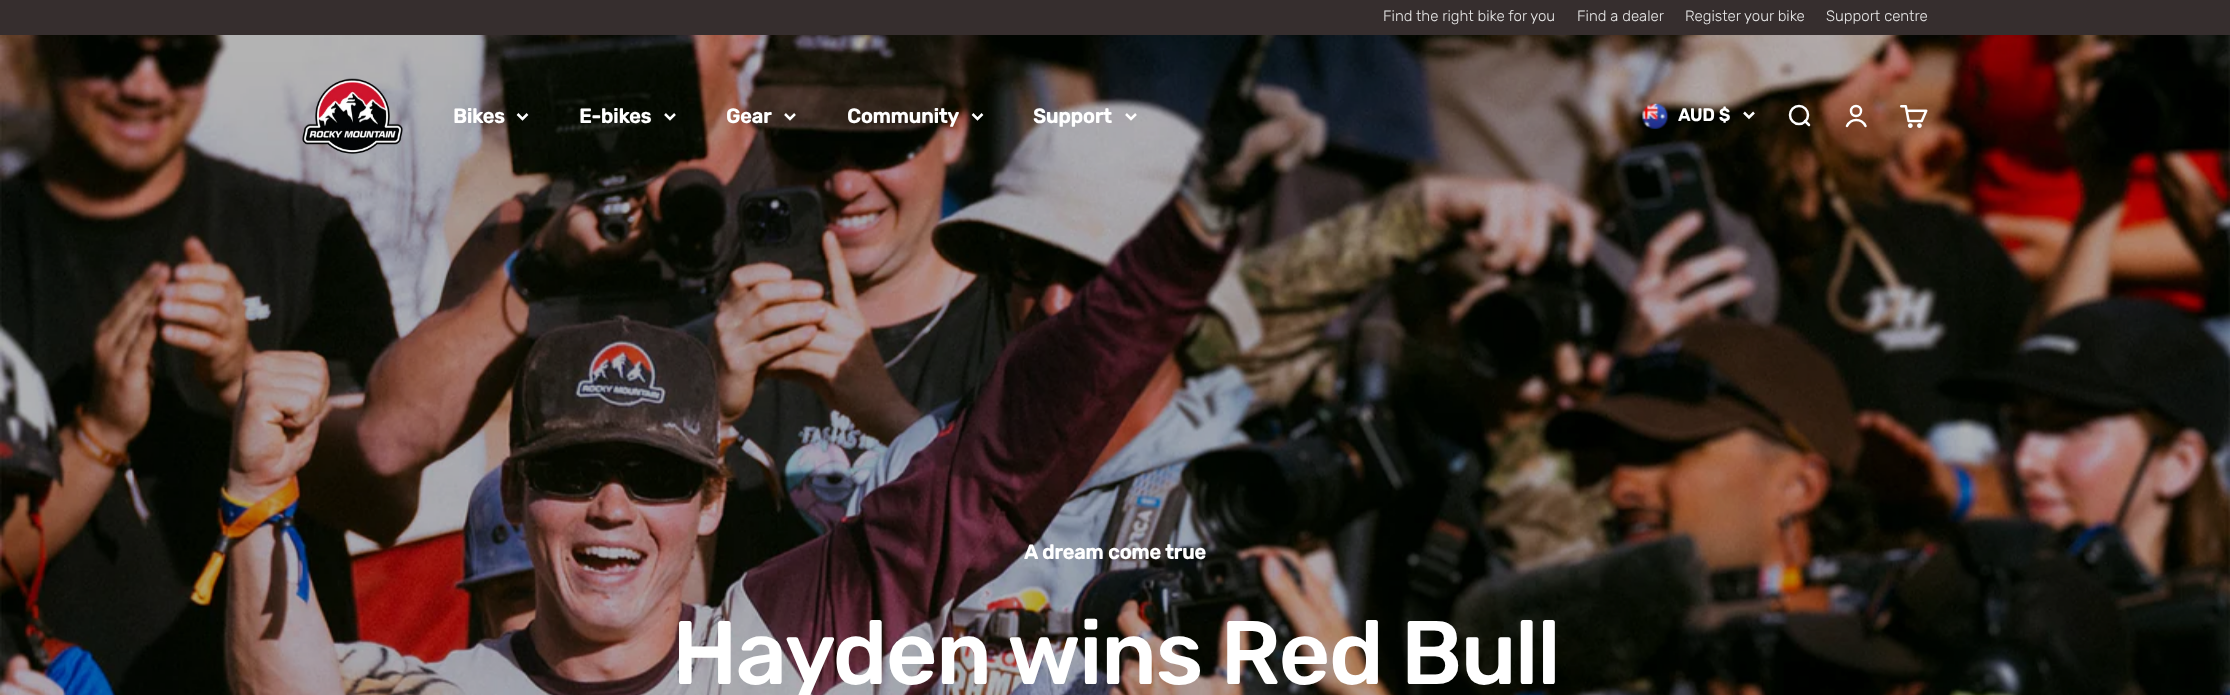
<!DOCTYPE html>
<meta charset="utf-8">
<style>body { margin: 0 } canvas { display: block }</style>
<canvas id="canvas" width="2230" height="695"></canvas>
<img id="img1" src="img_04.png" hidden>
<img id="img2" src="img_01.png" hidden>
<img id="img3" src="img_02.png" hidden>
<img id="img4" src="img_03.png" hidden>
<script>
window.onload = function () {
	const canvas = document.getElementById("canvas");
	const ctx = canvas.getContext("2d");
	ctx.miterLimit = 4;
	ctx.fontKerning = "normal";
	function txt(s, x, y) {
		ctx.fillText(s, x, y);
	}
	function fill(x, y, w, h) {
		ctx.fillRect(x, y, w, h);
	}
	function img(id, x, y, w, h) {
		ctx.drawImage(document.getElementById(id), x, y, w, h);
	}

	ctx.fillStyle = "#FFFFFF";
	fill(0, 0, 2230, 695);
	ctx.fillStyle = "#362E2E";
	fill(0, 0, 2230, 35);
	img("img1", 0, 35, 2230, 660);
	img("img2", 302, 78, 101, 76);
	ctx.beginPath();
	ctx.moveTo(517.5, 114);
	ctx.lineTo(522.5, 119);
	ctx.lineTo(527.5, 114);
	ctx.strokeStyle = "#FFFFFF";
	ctx.lineWidth = 2.5;
	ctx.stroke();
	ctx.beginPath();
	ctx.moveTo(665, 114);
	ctx.lineTo(670, 119);
	ctx.lineTo(675, 114);
	ctx.stroke();
	ctx.beginPath();
	ctx.moveTo(785, 114);
	ctx.lineTo(790, 119);
	ctx.lineTo(795, 114);
	ctx.stroke();
	ctx.beginPath();
	ctx.moveTo(972.5, 114);
	ctx.lineTo(977.5, 119);
	ctx.lineTo(982.5, 114);
	ctx.stroke();
	ctx.beginPath();
	ctx.moveTo(1126, 114);
	ctx.lineTo(1131, 119);
	ctx.lineTo(1136, 114);
	ctx.stroke();
	img("img3", 1642, 103, 27, 26);
	ctx.beginPath();
	ctx.moveTo(1744, 112.5);
	ctx.lineTo(1749, 117.5);
	ctx.lineTo(1754, 112.5);
	ctx.stroke();
	ctx.beginPath();
	ctx.arc(1799, 115, 9, 0, Math.PI * 2);
	ctx.stroke();
	ctx.beginPath();
	ctx.moveTo(1805, 121);
	ctx.lineTo(1809, 125);
	ctx.lineCap = "round";
	ctx.lineJoin = "round";
	ctx.stroke();
	ctx.beginPath();
	ctx.arc(1856, 111, 5, 0, Math.PI * 2);
	ctx.stroke();
	ctx.beginPath();
	ctx.moveTo(1847, 126);
	ctx.bezierCurveTo(1851, 118, 1861.5, 118, 1865.5, 126);
	ctx.lineJoin = "miter";
	ctx.stroke();
	img("img4", 1900, 105, 28, 23);
	ctx.font = "300 15px Rubik";
	ctx.fillStyle = "#EAEAEA";
	txt("Find the right bike for you", 1383, 21);
	txt("Find a dealer", 1577, 21);
	txt("Register your bike", 1685, 21);
	txt("Support centre", 1826, 21);
	ctx.font = "bold 20px Rubik";
	ctx.fillStyle = "#FFFFFF";
	txt("Bikes", 453, 123);
	txt("E-bikes", 579, 123);
	txt("Gear", 726, 123);
	txt("Community", 847, 123);
	txt("Support", 1033, 123);
	ctx.font = "bold 17.5px Rubik";
	txt("AUD $", 1678, 121);
	ctx.font = "bold 20px Rubik";
	txt("A dream come true", 1024, 559);
	ctx.letterSpacing = "-1.8px";
	ctx.font = "500 90px Rubik";
	txt("Hayden wins Red Bull", 672, 684);
};
</script>
